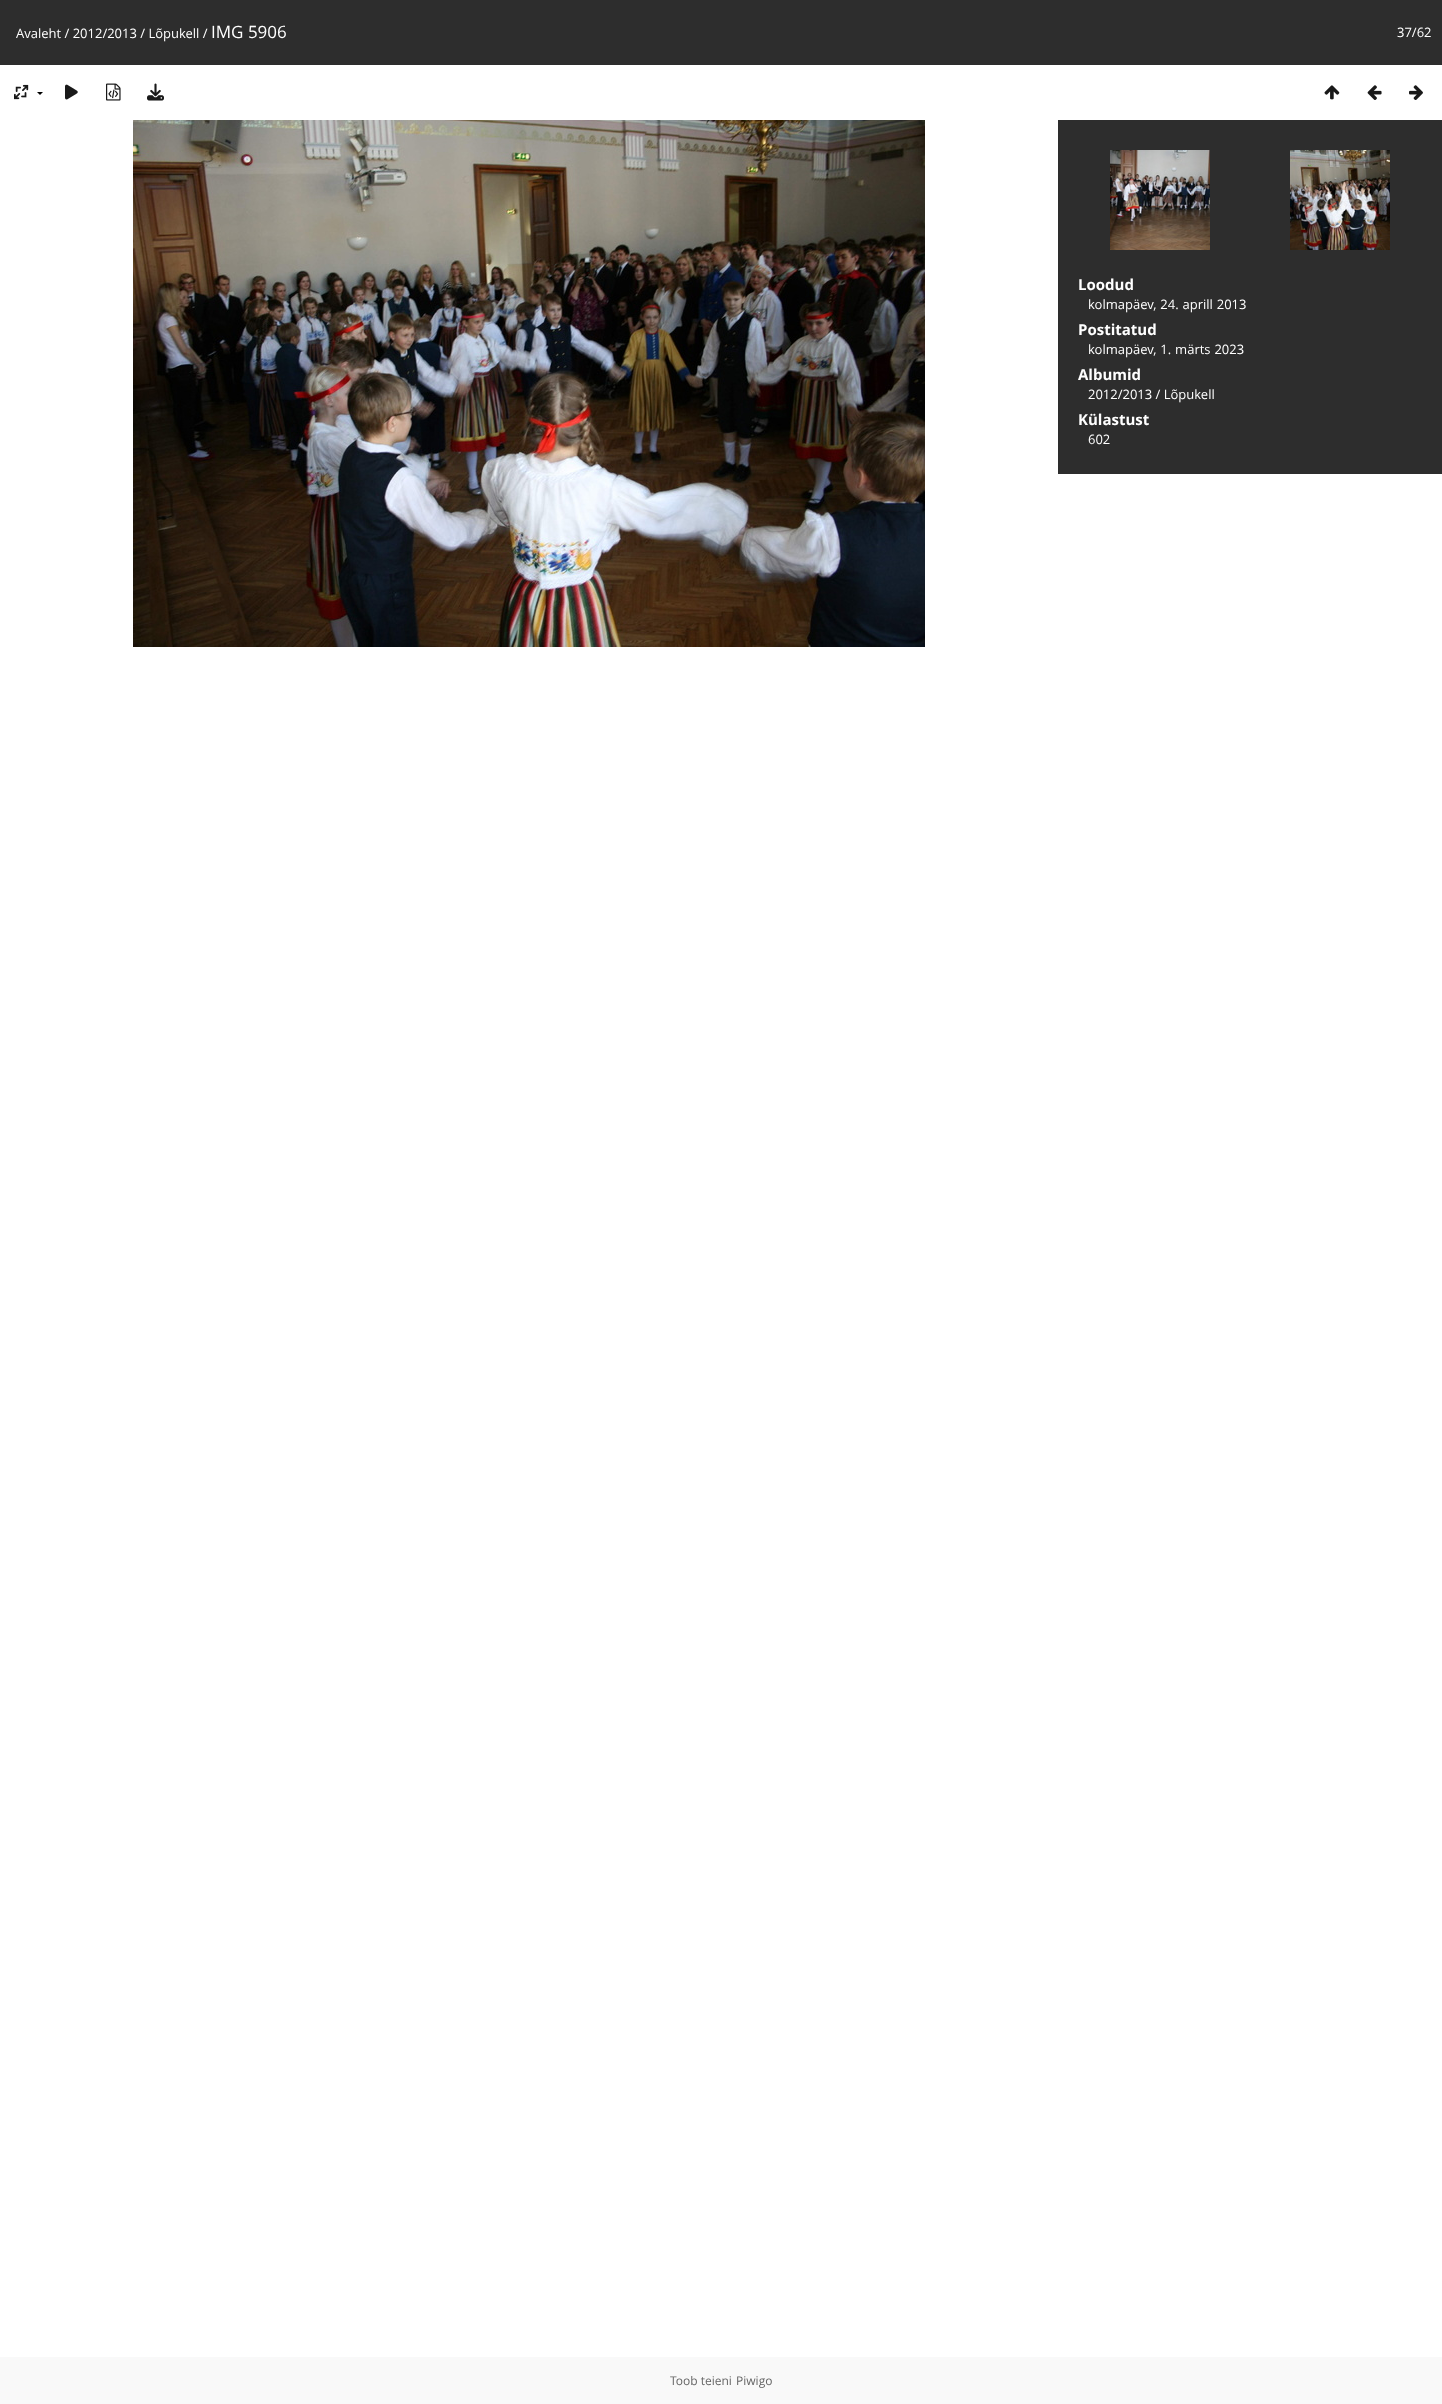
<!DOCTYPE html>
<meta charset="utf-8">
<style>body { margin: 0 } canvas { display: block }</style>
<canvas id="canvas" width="1442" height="2404"></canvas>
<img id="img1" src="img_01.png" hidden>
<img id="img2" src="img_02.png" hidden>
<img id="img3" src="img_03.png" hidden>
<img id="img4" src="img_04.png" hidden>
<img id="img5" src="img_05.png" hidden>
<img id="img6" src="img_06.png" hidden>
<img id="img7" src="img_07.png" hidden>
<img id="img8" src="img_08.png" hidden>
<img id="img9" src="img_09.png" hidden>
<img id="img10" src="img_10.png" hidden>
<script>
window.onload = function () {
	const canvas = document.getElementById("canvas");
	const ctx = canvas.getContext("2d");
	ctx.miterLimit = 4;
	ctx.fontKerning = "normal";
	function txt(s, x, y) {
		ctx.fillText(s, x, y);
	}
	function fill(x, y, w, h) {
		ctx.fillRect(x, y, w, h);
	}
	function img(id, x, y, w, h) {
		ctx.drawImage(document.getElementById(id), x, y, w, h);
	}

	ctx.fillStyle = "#FFFFFF";
	fill(0, 0, 1442, 2404);
	ctx.fillStyle = "#2D2D2D";
	fill(0, 0, 1442, 65);
	img("img1", 14, 84, 15, 16);
	ctx.fillStyle = "#000000";
	ctx.beginPath();
	ctx.moveTo(37, 92);
	ctx.lineTo(43, 92);
	ctx.lineTo(40, 95);
	ctx.closePath();
	ctx.fill();
	img("img2", 65, 84, 13, 16);
	img("img3", 106, 83, 15, 18);
	img("img4", 147, 83, 17, 18);
	img("img5", 1324, 85, 16, 15);
	img("img6", 1367, 85, 15, 15);
	img("img7", 1409, 85, 14, 15);
	img("img8", 133, 120, 792, 527);
	ctx.fillStyle = "#2D2D2D";
	fill(1058, 120, 384, 354);
	img("img9", 1110, 150, 100, 100);
	img("img10", 1290, 150, 100, 100);
	ctx.fillStyle = "#F9F9F9";
	fill(0, 2357, 1442, 47);
	ctx.font = "13px Open Sans";
	ctx.fillStyle = "#FFFFFF";
	txt("Avaleht / 2012/2013 / Lõpukell /", 16, 38);
	ctx.font = "17px Open Sans";
	txt("IMG 5906", 211, 38);
	ctx.font = "13px Open Sans";
	txt("37/62", 1397, 37);
	ctx.font = "bold 15px Open Sans";
	txt("Loodud", 1078, 290);
	ctx.wordSpacing = "0.5px";
	ctx.font = "13px Open Sans";
	txt("kolmapäev, 24. aprill 2013", 1088, 309);
	ctx.wordSpacing = "0px";
	ctx.font = "bold 15px Open Sans";
	txt("Postitatud", 1078, 335);
	ctx.wordSpacing = "0.5px";
	ctx.font = "13px Open Sans";
	txt("kolmapäev, 1. märts 2023", 1088, 354);
	ctx.wordSpacing = "0px";
	ctx.font = "bold 15px Open Sans";
	txt("Albumid", 1078, 380);
	ctx.font = "13px Open Sans";
	txt("2012/2013 / Lõpukell", 1088, 399);
	ctx.font = "bold 15px Open Sans";
	txt("Külastust", 1078, 425);
	ctx.font = "13px Open Sans";
	txt("602", 1088, 444);
	ctx.font = "12px Open Sans";
	ctx.fillStyle = "#666666";
	txt("Toob teieni", 670, 2385);
	txt("Piwigo", 736, 2385);
};
</script>
